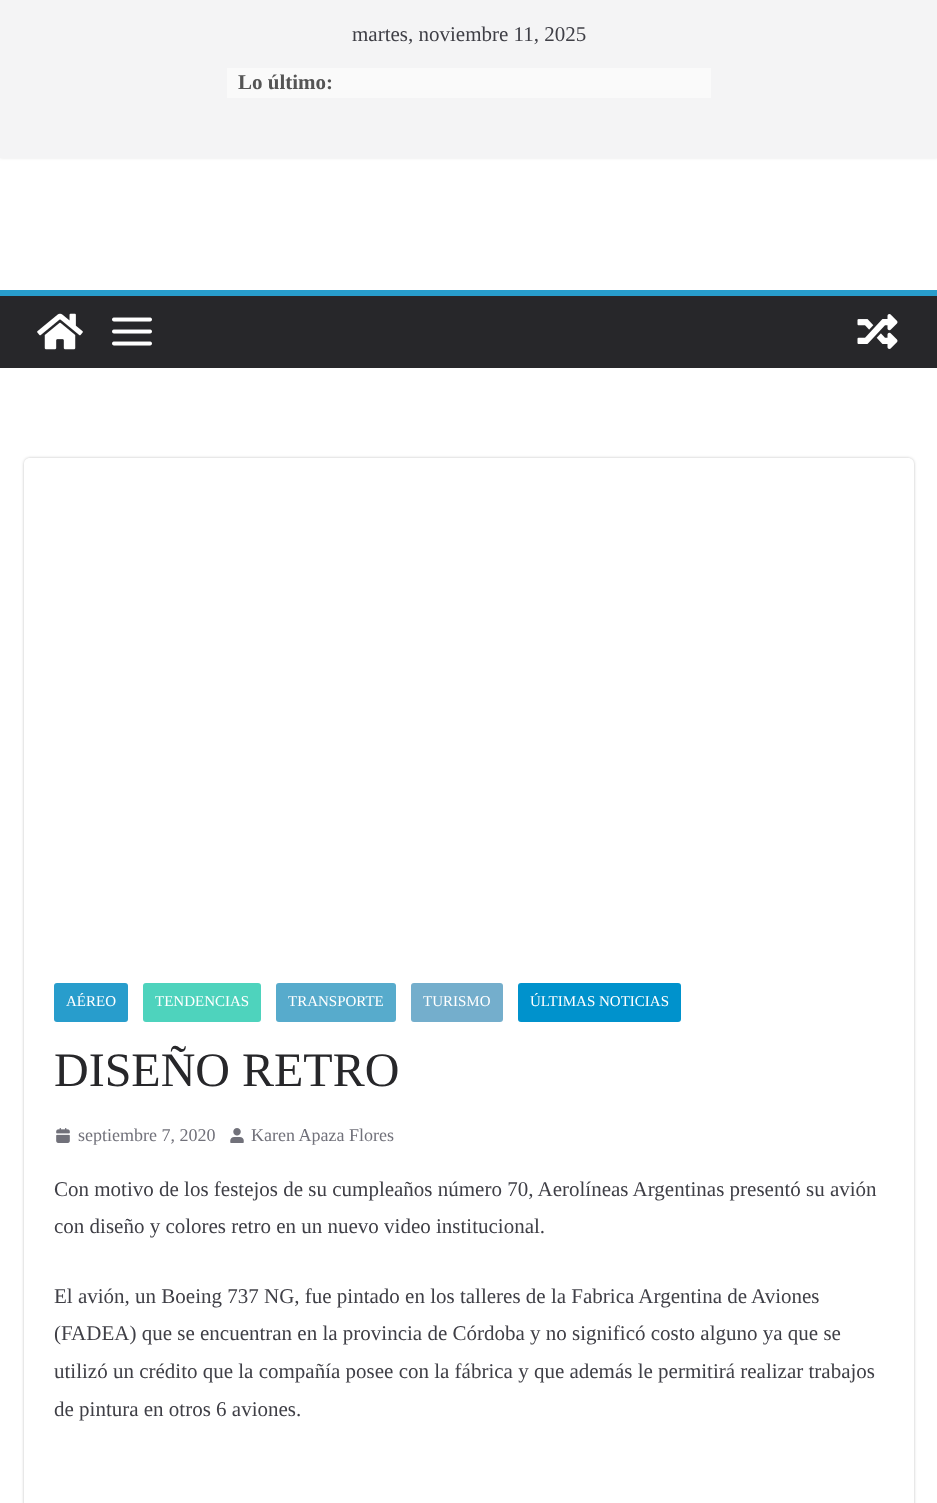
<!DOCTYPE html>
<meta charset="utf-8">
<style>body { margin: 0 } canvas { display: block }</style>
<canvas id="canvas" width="937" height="1503"></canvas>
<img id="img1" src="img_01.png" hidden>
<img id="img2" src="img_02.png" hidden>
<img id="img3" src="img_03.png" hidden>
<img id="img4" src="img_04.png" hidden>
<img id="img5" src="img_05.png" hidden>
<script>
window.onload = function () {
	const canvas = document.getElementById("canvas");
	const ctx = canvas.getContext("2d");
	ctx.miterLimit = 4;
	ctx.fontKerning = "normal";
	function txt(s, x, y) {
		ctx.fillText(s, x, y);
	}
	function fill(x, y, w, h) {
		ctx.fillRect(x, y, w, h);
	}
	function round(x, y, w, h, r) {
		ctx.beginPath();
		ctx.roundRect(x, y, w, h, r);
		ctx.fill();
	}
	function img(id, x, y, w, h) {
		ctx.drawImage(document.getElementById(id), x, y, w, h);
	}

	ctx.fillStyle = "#FFFFFF";
	fill(0, 0, 937, 1503);
	ctx.fillStyle = "rgba(0, 0, 0, 0.1)";
	ctx.filter = "blur(1.5px)";
	ctx.beginPath();
	ctx.rect(0, 0, 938, 158);
	ctx.fill();
	ctx.filter = "none";
	ctx.fillStyle = "#F4F4F5";
	fill(0, 0, 937, 158);
	ctx.fillStyle = "#FAFAFA";
	fill(227, 68, 484, 30);
	ctx.fillStyle = "#27272A";
	fill(0, 296, 937, 72);
	ctx.fillStyle = "#289DCC";
	fill(0, 290, 937, 6);
	img("img1", 37, 313, 46, 37);
	img("img2", 112, 317, 40, 29);
	img("img3", 857, 314, 41, 35);
	ctx.save();
	ctx.beginPath();
	ctx.moveTo(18, 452);
	ctx.lineTo(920, 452);
	ctx.lineTo(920, 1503);
	ctx.lineTo(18, 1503);
	ctx.closePath();
	ctx.moveTo(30, 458);
	ctx.lineTo(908, 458);
	ctx.bezierCurveTo(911.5, 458, 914, 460.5, 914, 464);
	ctx.lineTo(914, 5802);
	ctx.bezierCurveTo(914, 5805.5, 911.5, 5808, 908, 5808);
	ctx.lineTo(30, 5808);
	ctx.bezierCurveTo(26.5, 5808, 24, 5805.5, 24, 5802);
	ctx.lineTo(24, 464);
	ctx.bezierCurveTo(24, 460.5, 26.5, 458, 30, 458);
	ctx.closePath();
	ctx.clip("evenodd");
	ctx.fillStyle = "rgba(0, 0, 0, 0.24)";
	ctx.filter = "blur(1.5px)";
	ctx.beginPath();
	ctx.roundRect(24, 458, 890, 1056, 6);
	ctx.fill();
	ctx.filter = "none";
	ctx.restore();
	round(54, 983, 74, 39, 3);
	ctx.fillStyle = "#4ED3BD";
	round(143, 983, 118, 39, 3);
	ctx.fillStyle = "#57ABCC";
	round(276, 983, 120, 39, 3);
	ctx.fillStyle = "#74AECC";
	round(411, 983, 92, 39, 3);
	ctx.fillStyle = "#0092CC";
	round(518, 983, 163, 39, 3);
	img("img4", 56, 1128, 14, 15);
	img("img5", 230, 1128, 14, 15);
	ctx.font = "21px Liberation Serif";
	ctx.fillStyle = "#3F3F46";
	txt("martes, noviembre 11, 2025", 352, 41);
	ctx.font = "bold 21px Liberation Serif";
	ctx.fillStyle = "#555555";
	txt("Lo último:", 238, 89);
	ctx.font = "15px Liberation Serif";
	ctx.fillStyle = "#FFFFFF";
	txt("AÉREO", 66, 1006);
	txt("TENDENCIAS", 155, 1006);
	txt("TRANSPORTE", 288, 1006);
	txt("TURISMO", 423, 1006);
	txt("ÚLTIMAS NOTICIAS", 530, 1006);
	ctx.font = "48px Liberation Serif";
	ctx.fillStyle = "#27272A";
	txt("DISEÑO RETRO", 54, 1086);
	ctx.font = "18px Liberation Serif";
	ctx.fillStyle = "#71717A";
	txt("septiembre 7, 2020", 78, 1141);
	txt("Karen Apaza Flores", 251, 1141);
	ctx.font = "21px Liberation Serif";
	ctx.fillStyle = "#3F3F46";
	txt("Con motivo de los festejos de su cumpleaños número 70, Aerolíneas Argentinas presentó su avión", 54, 1196);
	txt("con diseño y colores retro en un nuevo video institucional.", 54, 1233);
	txt("El avión, un Boeing 737 NG, fue pintado en los talleres de la Fabrica Argentina de Aviones", 54, 1303);
	txt("(FADEA) que se encuentran en la provincia de Córdoba y no significó costo alguno ya que se", 54, 1340);
	txt("utilizó un crédito que la compañía posee con la fábrica y que además le permitirá realizar trabajos", 54, 1378);
	txt("de pintura en otros 6 aviones.", 54, 1416);
};
</script>
